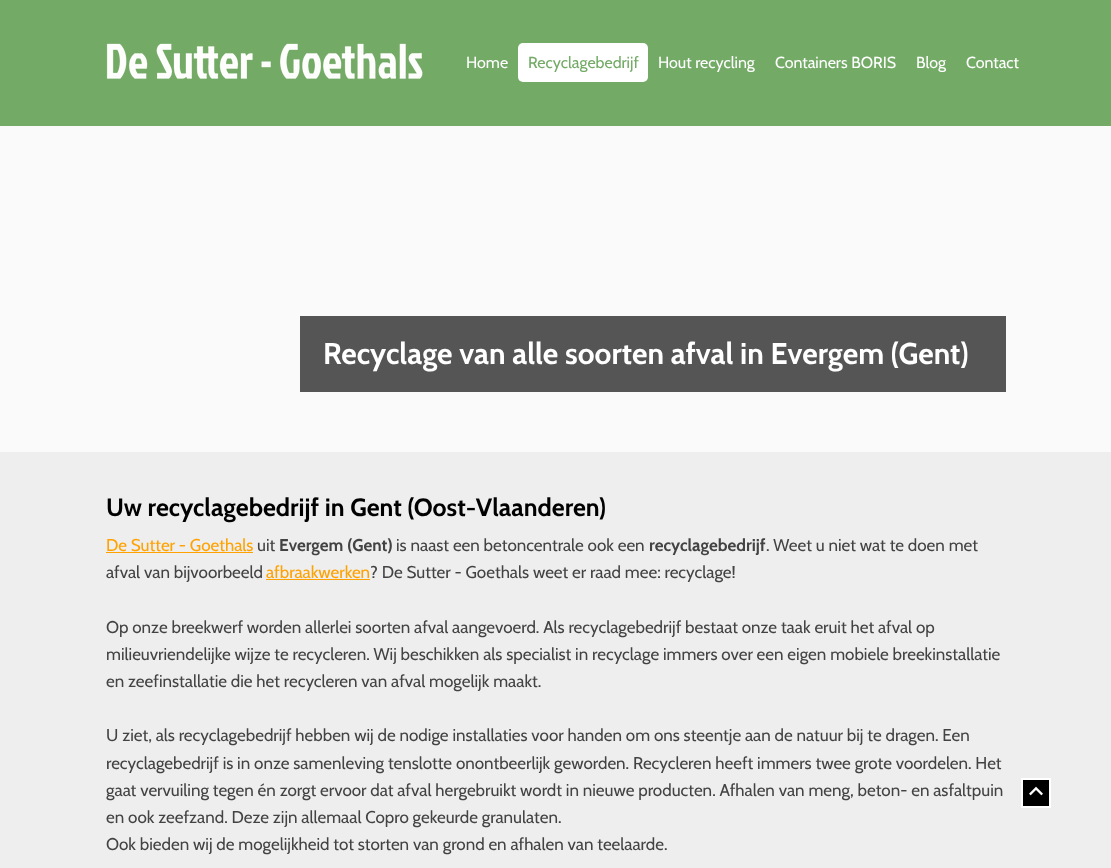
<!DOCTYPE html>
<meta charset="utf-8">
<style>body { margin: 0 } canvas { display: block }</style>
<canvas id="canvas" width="1111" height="868"></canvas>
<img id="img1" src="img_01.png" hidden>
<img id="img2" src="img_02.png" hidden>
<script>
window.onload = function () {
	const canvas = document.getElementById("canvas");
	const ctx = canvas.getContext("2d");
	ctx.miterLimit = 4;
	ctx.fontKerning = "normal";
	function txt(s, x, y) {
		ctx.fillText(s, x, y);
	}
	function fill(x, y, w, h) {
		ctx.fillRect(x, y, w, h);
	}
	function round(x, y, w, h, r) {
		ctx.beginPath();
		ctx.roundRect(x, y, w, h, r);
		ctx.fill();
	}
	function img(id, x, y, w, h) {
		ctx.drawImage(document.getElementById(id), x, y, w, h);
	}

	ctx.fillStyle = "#73AA66";
	fill(0, 0, 1111, 868);
	img("img1", 106, 43, 317, 36);
	ctx.fillStyle = "#FFFFFF";
	round(518, 43, 130, 39, 5);
	ctx.fillStyle = "#FAFAFA";
	fill(0, 126, 1111, 326);
	ctx.fillStyle = "#555555";
	fill(300, 316, 706, 76);
	ctx.fillStyle = "#EEEEEE";
	fill(0, 452, 1111, 416);
	ctx.fillStyle = "#FFA200";
	fill(106, 552, 147, 1);
	fill(266, 579, 104, 1);
	ctx.fillStyle = "#000000";
	ctx.beginPath();
	ctx.rect(1022, 779, 28, 28);
	ctx.fill();
	ctx.strokeStyle = "#FFFFFF";
	ctx.lineWidth = 2;
	ctx.stroke();
	img("img2", 1029, 786, 14, 10);
	ctx.font = "16px Cabin";
	ctx.fillStyle = "#FFFFFF";
	txt("Home", 466, 68);
	ctx.fillStyle = "#73AA66";
	txt("Recyclagebedrijf", 528, 68);
	ctx.fillStyle = "#FFFFFF";
	txt("Hout recycling", 658, 68);
	txt("Containers BORIS", 775, 68);
	txt("Blog", 916, 68);
	txt("Contact", 966, 68);
	ctx.font = "bold 30px Cabin";
	txt("Recyclage van alle soorten afval in Evergem (Gent)", 323, 364);
	ctx.font = "bold 25px Cabin";
	ctx.fillStyle = "#000000";
	txt("Uw recyclagebedrijf in Gent (Oost-Vlaanderen)", 106, 516);
	ctx.font = "17px Cabin";
	ctx.fillStyle = "#FFA200";
	txt("De Sutter - Goethals", 106, 551);
	ctx.fillStyle = "#434343";
	txt("uit", 257, 551);
	ctx.font = "bold 17px 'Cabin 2'";
	txt("Evergem (Gent)", 279, 551);
	ctx.font = "17px Cabin";
	txt("is naast een betoncentrale ook een", 396, 551);
	ctx.font = "bold 17px Cabin";
	txt("recyclagebedrijf", 649, 551);
	ctx.font = "17px Cabin";
	txt(". Weet u niet wat te doen met", 766, 551);
	txt("afval van bijvoorbeeld", 106, 578);
	ctx.fillStyle = "#FFA200";
	txt("afbraakwerken", 266, 578);
	ctx.fillStyle = "#434343";
	txt("? De Sutter - Goethals weet er raad mee: recyclage!", 370, 578);
	txt("Op onze breekwerf worden allerlei soorten afval aangevoerd. Als recyclagebedrijf bestaat onze taak eruit het afval op", 106, 633);
	txt("milieuvriendelijke wijze te recycleren. Wij beschikken als specialist in recyclage immers over een eigen mobiele breekinstallatie", 106, 660);
	txt("en zeefinstallatie die het recycleren van afval mogelijk maakt.", 106, 687);
	txt("U ziet, als recyclagebedrijf hebben wij de nodige installaties voor handen om ons steentje aan de natuur bij te dragen. Een", 106, 741);
	txt("recyclagebedrijf is in onze samenleving tenslotte onontbeerlijk geworden. Recycleren heeft immers twee grote voordelen. Het", 106, 769);
	txt("gaat vervuiling tegen én zorgt ervoor dat afval hergebruikt wordt in nieuwe producten. Afhalen van meng, beton- en asfaltpuin", 106, 796);
	txt("en ook zeefzand. Deze zijn allemaal Copro gekeurde granulaten.", 106, 823);
	txt("Ook bieden wij de mogelijkheid tot storten van grond en afhalen van teelaarde.", 106, 850);
};
</script>
